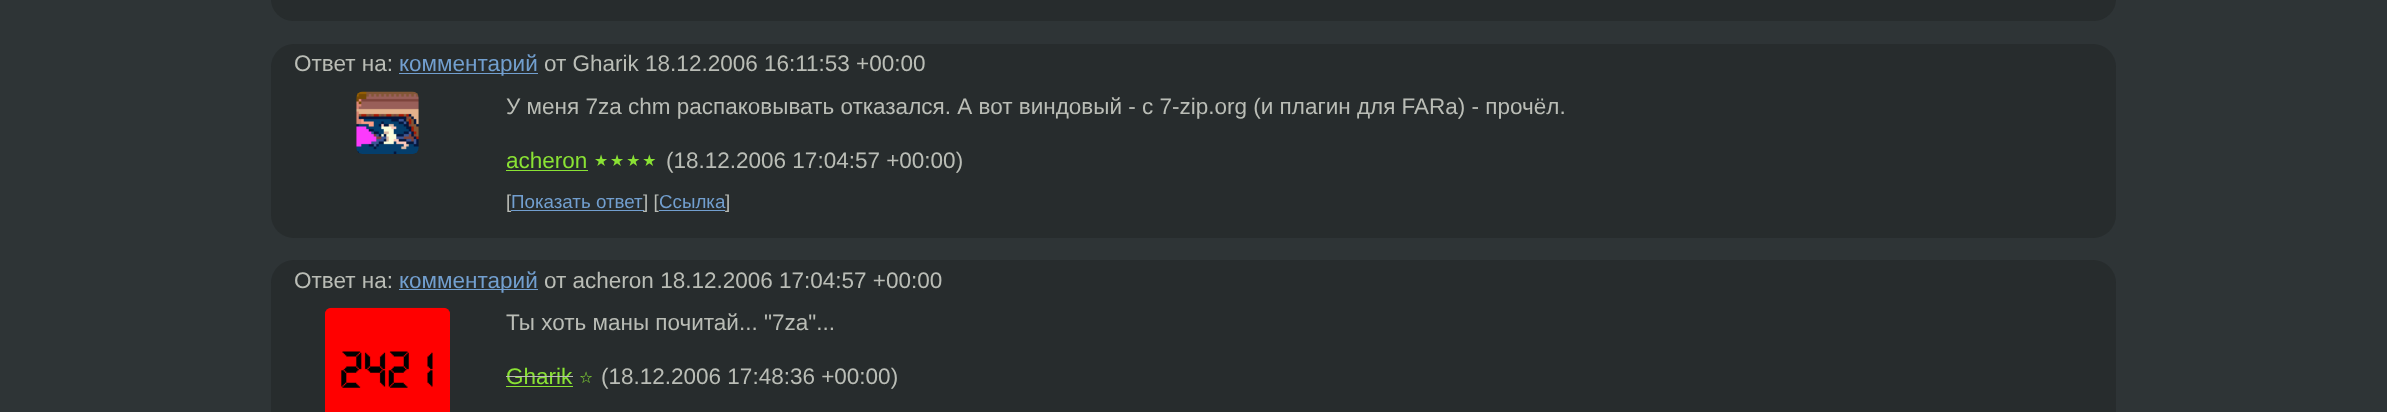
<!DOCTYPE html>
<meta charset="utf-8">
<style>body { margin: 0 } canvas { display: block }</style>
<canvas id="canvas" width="2387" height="412"></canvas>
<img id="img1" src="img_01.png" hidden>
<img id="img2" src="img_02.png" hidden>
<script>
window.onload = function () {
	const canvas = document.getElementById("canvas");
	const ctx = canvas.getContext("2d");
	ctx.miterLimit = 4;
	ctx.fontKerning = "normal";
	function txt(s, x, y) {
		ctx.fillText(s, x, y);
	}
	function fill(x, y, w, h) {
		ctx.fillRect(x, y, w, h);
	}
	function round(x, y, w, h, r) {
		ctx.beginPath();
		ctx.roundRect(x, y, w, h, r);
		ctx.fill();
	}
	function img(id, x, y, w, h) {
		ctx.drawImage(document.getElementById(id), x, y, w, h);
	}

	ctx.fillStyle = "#2E3436";
	fill(0, 0, 2387, 412);
	ctx.fillStyle = "#272C2D";
	round(271, -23, 1845, 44, 23);
	round(271, 44, 1845, 194, 23);
	ctx.fillStyle = "#729FCF";
	fill(399, 73, 139, 1);
	img("img1", 356, 91, 63, 63);
	ctx.fillStyle = "#8AE234";
	fill(506, 170, 82, 1);
	ctx.fillStyle = "#729FCF";
	fill(659, 210, 66, 1);
	ctx.fillStyle = "#272C2D";
	round(271, 260, 1845, 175, 23);
	ctx.fillStyle = "#729FCF";
	fill(399, 289, 139, 1);
	img("img2", 325, 307, 125, 105);
	ctx.fillStyle = "#8AE234";
	fill(506, 386, 67, 1);
	ctx.font = "22.5px Liberation Sans";
	ctx.fillStyle = "#BABDB6";
	txt("Ответ на:", 294, 71);
	ctx.fillStyle = "#729FCF";
	txt("комментарий", 399, 71);
	ctx.fillStyle = "#BABDB6";
	txt("от Gharik 18.12.2006 16:11:53 +00:00", 544, 71);
	txt("У меня 7za chm распаковывать отказался. А вот виндовый - с 7-zip.org (и плагин для FARа) - прочёл.", 506, 114);
	ctx.fillStyle = "#8AE234";
	txt("acheron", 506, 168);
	ctx.letterSpacing = "2px";
	ctx.font = "15.75px DejaVu Sans";
	txt("★★★★", 594, 166);
	ctx.letterSpacing = "0px";
	ctx.font = "22.5px Liberation Sans";
	ctx.fillStyle = "#BABDB6";
	txt("(18.12.2006 17:04:57 +00:00)", 666, 168);
	ctx.font = "18.75px Liberation Sans";
	txt("[", 506, 208);
	ctx.fillStyle = "#729FCF";
	fill(511, 210, 133, 1);
	txt("Показать ответ", 511, 208);
	ctx.fillStyle = "#BABDB6";
	txt("] [", 643, 208);
	ctx.fillStyle = "#729FCF";
	txt("Ссылка", 659, 208);
	ctx.fillStyle = "#BABDB6";
	txt("]", 725, 208);
	ctx.font = "22.5px Liberation Sans";
	txt("Ответ на:", 294, 288);
	ctx.fillStyle = "#729FCF";
	txt("комментарий", 399, 288);
	ctx.fillStyle = "#BABDB6";
	txt("от acheron 18.12.2006 17:04:57 +00:00", 544, 288);
	txt("Ты хоть маны почитай... \"7za\"...", 506, 330);
	ctx.fillStyle = "#8AE234";
	txt("Gharik", 506, 384);
	ctx.fillStyle = "#BABDB6";
	fill(506, 376, 67, 1);
	ctx.letterSpacing = "2px";
	ctx.font = "15.75px DejaVu Sans";
	ctx.fillStyle = "#8AE234";
	txt("☆", 579, 383);
	ctx.letterSpacing = "0px";
	ctx.font = "22.5px Liberation Sans";
	ctx.fillStyle = "#BABDB6";
	txt("(18.12.2006 17:48:36 +00:00)", 601, 384);
};
</script>
